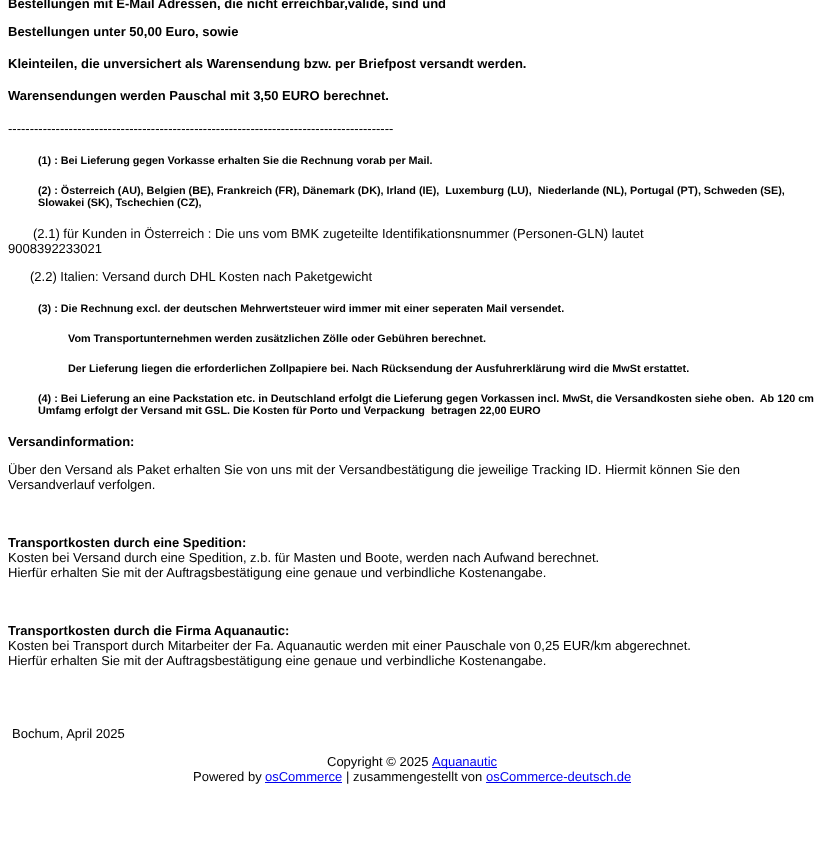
<!DOCTYPE html>
<meta charset="utf-8">
<style>body { margin: 0 } canvas { display: block }</style>
<canvas id="canvas" width="824" height="841"></canvas>
<script>
window.onload = function () {
	const canvas = document.getElementById("canvas");
	const ctx = canvas.getContext("2d");
	ctx.miterLimit = 4;
	ctx.fontKerning = "normal";
	function txt(s, x, y) {
		ctx.fillText(s, x, y);
	}
	function fill(x, y, w, h) {
		ctx.fillRect(x, y, w, h);
	}

	ctx.fillStyle = "#FFFFFF";
	fill(0, 0, 824, 841);
	ctx.fillStyle = "#0000EE";
	fill(432, 767, 65, 1);
	fill(265, 782, 77, 1);
	fill(486, 782, 145, 1);
	ctx.font = "bold 13px Liberation Sans";
	ctx.fillStyle = "#000000";
	txt("Bestellungen mit E-Mail Adressen, die nicht erreichbar,valide, sind und", 8, 8);
	txt("Bestellungen unter 50,00 Euro, sowie", 8, 36);
	txt("Kleinteilen, die unversichert als Warensendung bzw. per Briefpost versandt werden.", 8, 68);
	txt("Warensendungen werden Pauschal mit 3,50 EURO berechnet.", 8, 100);
	ctx.font = "13px Liberation Sans";
	txt("-----------------------------------------------------------------------------------------", 8, 133);
	ctx.font = "bold 10.8px Liberation Sans";
	txt("(1) : Bei Lieferung gegen Vorkasse erhalten Sie die Rechnung vorab per Mail.", 38, 164);
	txt("(2) : Österreich (AU), Belgien (BE), Frankreich (FR), Dänemark (DK), Irland (IE),  Luxemburg (LU),  Niederlande (NL), Portugal (PT), Schweden (SE),", 38, 194);
	txt("Slowakei (SK), Tschechien (CZ),", 38, 206);
	ctx.font = "13px Liberation Sans";
	txt("(2.1) für Kunden in Österreich : Die uns vom BMK zugeteilte Identifikationsnummer (Personen-GLN) lautet", 33, 238);
	txt("9008392233021", 8, 253);
	txt("(2.2) Italien: Versand durch DHL Kosten nach Paketgewicht", 30, 281);
	ctx.font = "bold 10.8px Liberation Sans";
	txt("(3) : Die Rechnung excl. der deutschen Mehrwertsteuer wird immer mit einer seperaten Mail versendet.", 38, 312);
	txt("Vom Transportunternehmen werden zusätzlichen Zölle oder Gebühren berechnet.", 68, 342);
	txt("Der Lieferung liegen die erforderlichen Zollpapiere bei. Nach Rücksendung der Ausfuhrerklärung wird die MwSt erstattet.", 68, 372);
	txt("(4) : Bei Lieferung an eine Packstation etc. in Deutschland erfolgt die Lieferung gegen Vorkassen incl. MwSt, die Versandkosten siehe oben.  Ab 120 cm", 38, 402);
	txt("Umfamg erfolgt der Versand mit GSL. Die Kosten für Porto und Verpackung  betragen 22,00 EURO", 38, 414);
	ctx.font = "bold 13px Liberation Sans";
	txt("Versandinformation:", 8, 446);
	ctx.font = "13px Liberation Sans";
	txt("Über den Versand als Paket erhalten Sie von uns mit der Versandbestätigung die jeweilige Tracking ID. Hiermit können Sie den", 8, 474);
	txt("Versandverlauf verfolgen.", 8, 489);
	ctx.font = "bold 13px Liberation Sans";
	txt("Transportkosten durch eine Spedition:", 8, 547);
	ctx.font = "13px Liberation Sans";
	txt("Kosten bei Versand durch eine Spedition, z.b. für Masten und Boote, werden nach Aufwand berechnet.", 8, 562);
	txt("Hierfür erhalten Sie mit der Auftragsbestätigung eine genaue und verbindliche Kostenangabe.", 8, 577);
	ctx.font = "bold 13px Liberation Sans";
	txt("Transportkosten durch die Firma Aquanautic:", 8, 635);
	ctx.font = "13px Liberation Sans";
	txt("Kosten bei Transport durch Mitarbeiter der Fa. Aquanautic werden mit einer Pauschale von 0,25 EUR/km abgerechnet.", 8, 650);
	txt("Hierfür erhalten Sie mit der Auftragsbestätigung eine genaue und verbindliche Kostenangabe.", 8, 665);
	txt("Bochum, April 2025", 12, 738);
	txt("Copyright © 2025", 327, 766);
	ctx.fillStyle = "#0000EE";
	txt("Aquanautic", 432, 766);
	ctx.fillStyle = "#000000";
	txt("Powered by", 193, 781);
	ctx.fillStyle = "#0000EE";
	txt("osCommerce", 265, 781);
	ctx.fillStyle = "#000000";
	txt("| zusammengestellt von", 346, 781);
	ctx.fillStyle = "#0000EE";
	txt("osCommerce-deutsch.de", 486, 781);
};
</script>
